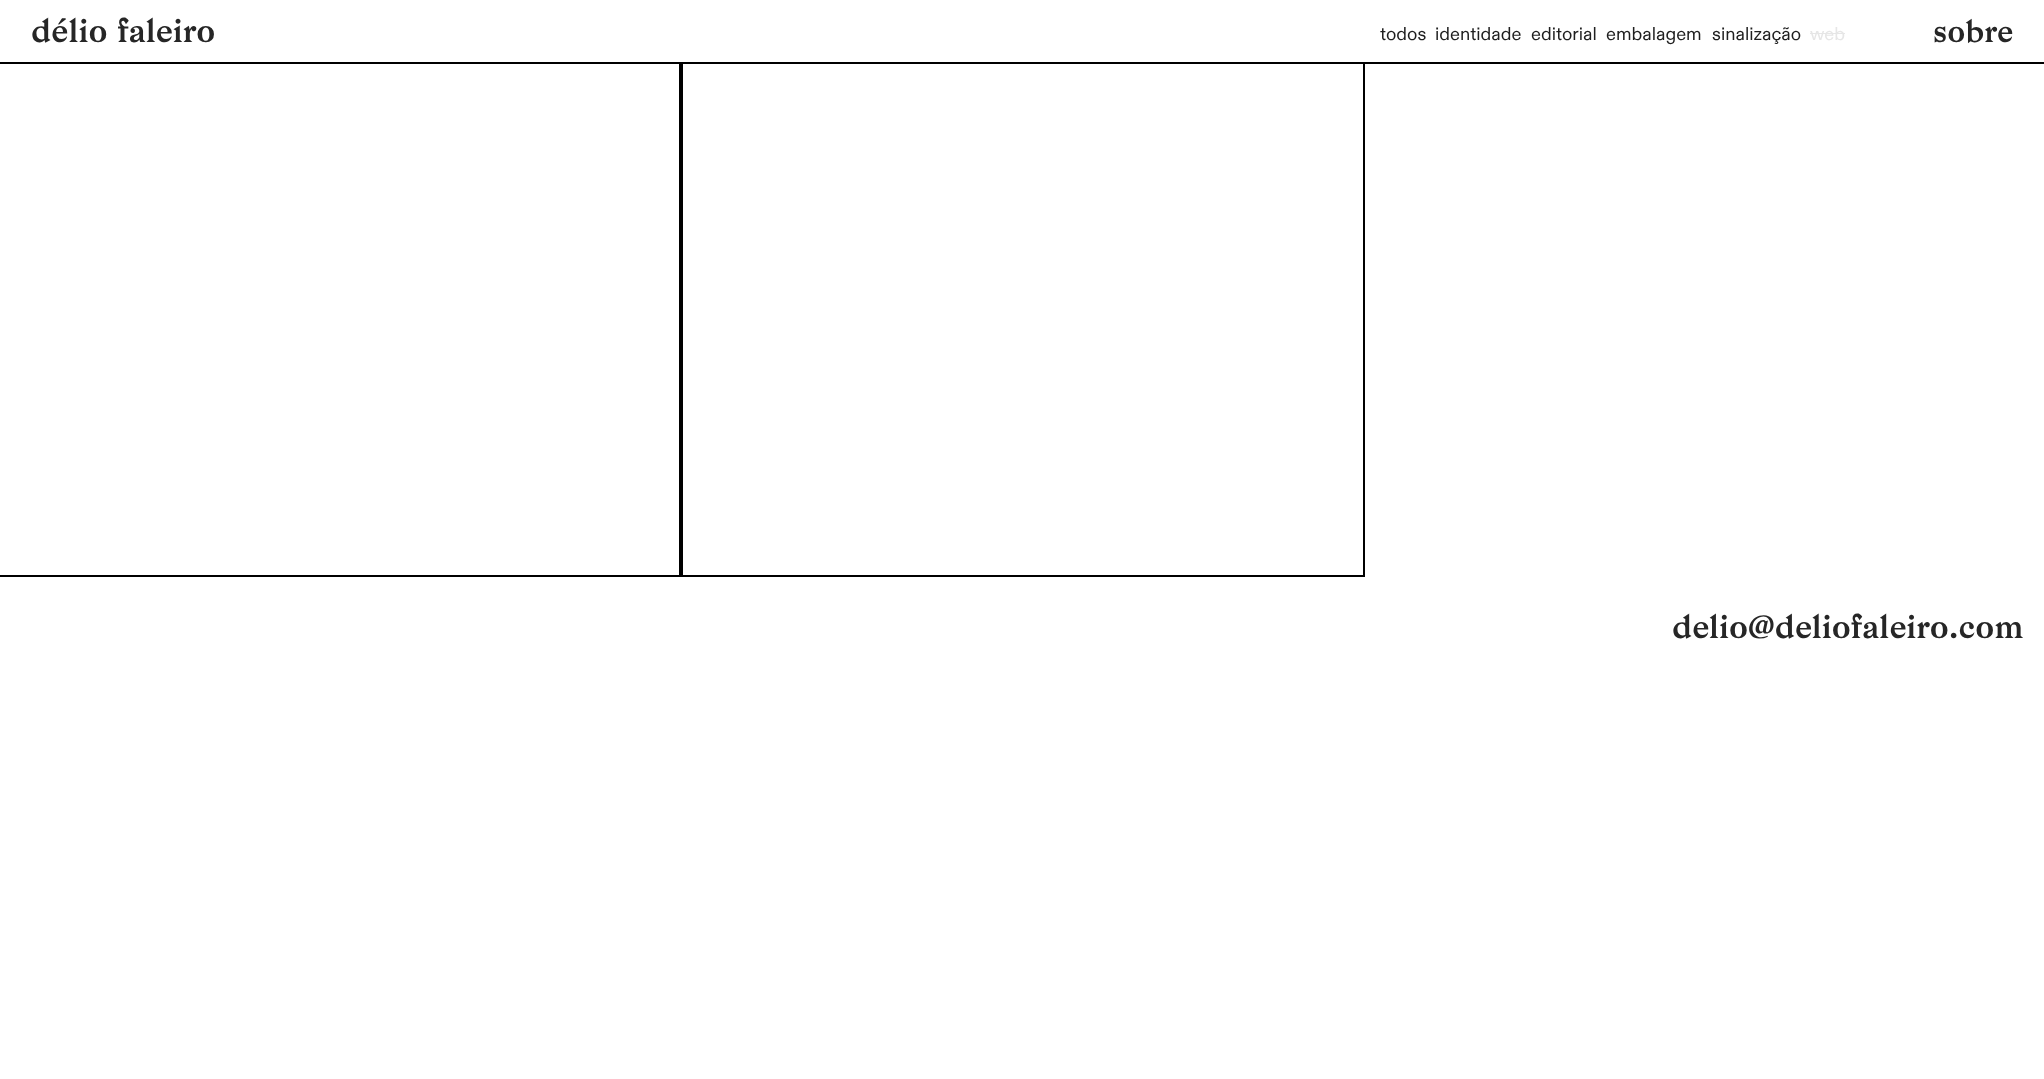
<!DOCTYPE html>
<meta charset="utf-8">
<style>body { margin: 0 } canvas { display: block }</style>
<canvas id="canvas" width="2044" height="1079"></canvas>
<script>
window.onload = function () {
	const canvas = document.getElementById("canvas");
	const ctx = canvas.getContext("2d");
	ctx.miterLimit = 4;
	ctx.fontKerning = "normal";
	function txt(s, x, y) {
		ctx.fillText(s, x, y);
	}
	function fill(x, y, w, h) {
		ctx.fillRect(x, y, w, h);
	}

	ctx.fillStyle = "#FFFFFF";
	fill(0, 0, 2044, 1079);
	ctx.fillStyle = "#E6E6E6";
	fill(1810, 33, 35, 1);
	ctx.fillStyle = "#000000";
	fill(1365, 62, 679, 2);
	ctx.strokeStyle = "#000000";
	ctx.lineWidth = 2;
	ctx.strokeRect(-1, 63, 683, 513);
	ctx.strokeRect(680, 63, 684, 513);
	ctx.font = "32.6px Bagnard";
	ctx.fillStyle = "#262626";
	txt("délio faleiro", 31, 42);
	ctx.font = "18.5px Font";
	ctx.fillStyle = "#1F1F1F";
	txt("todos", 1380, 40);
	txt("identidade", 1435, 40);
	txt("editorial", 1531, 40);
	txt("embalagem", 1606, 40);
	txt("sinalização", 1712, 40);
	ctx.fillStyle = "#E6E6E6";
	txt("web", 1810, 40);
	ctx.font = "31px Bagnard";
	ctx.fillStyle = "#262626";
	txt("sobre", 1933, 42);
	ctx.font = "32.6px Bagnard";
	txt("delio@deliofaleiro.com", 1672, 638);
};
</script>
